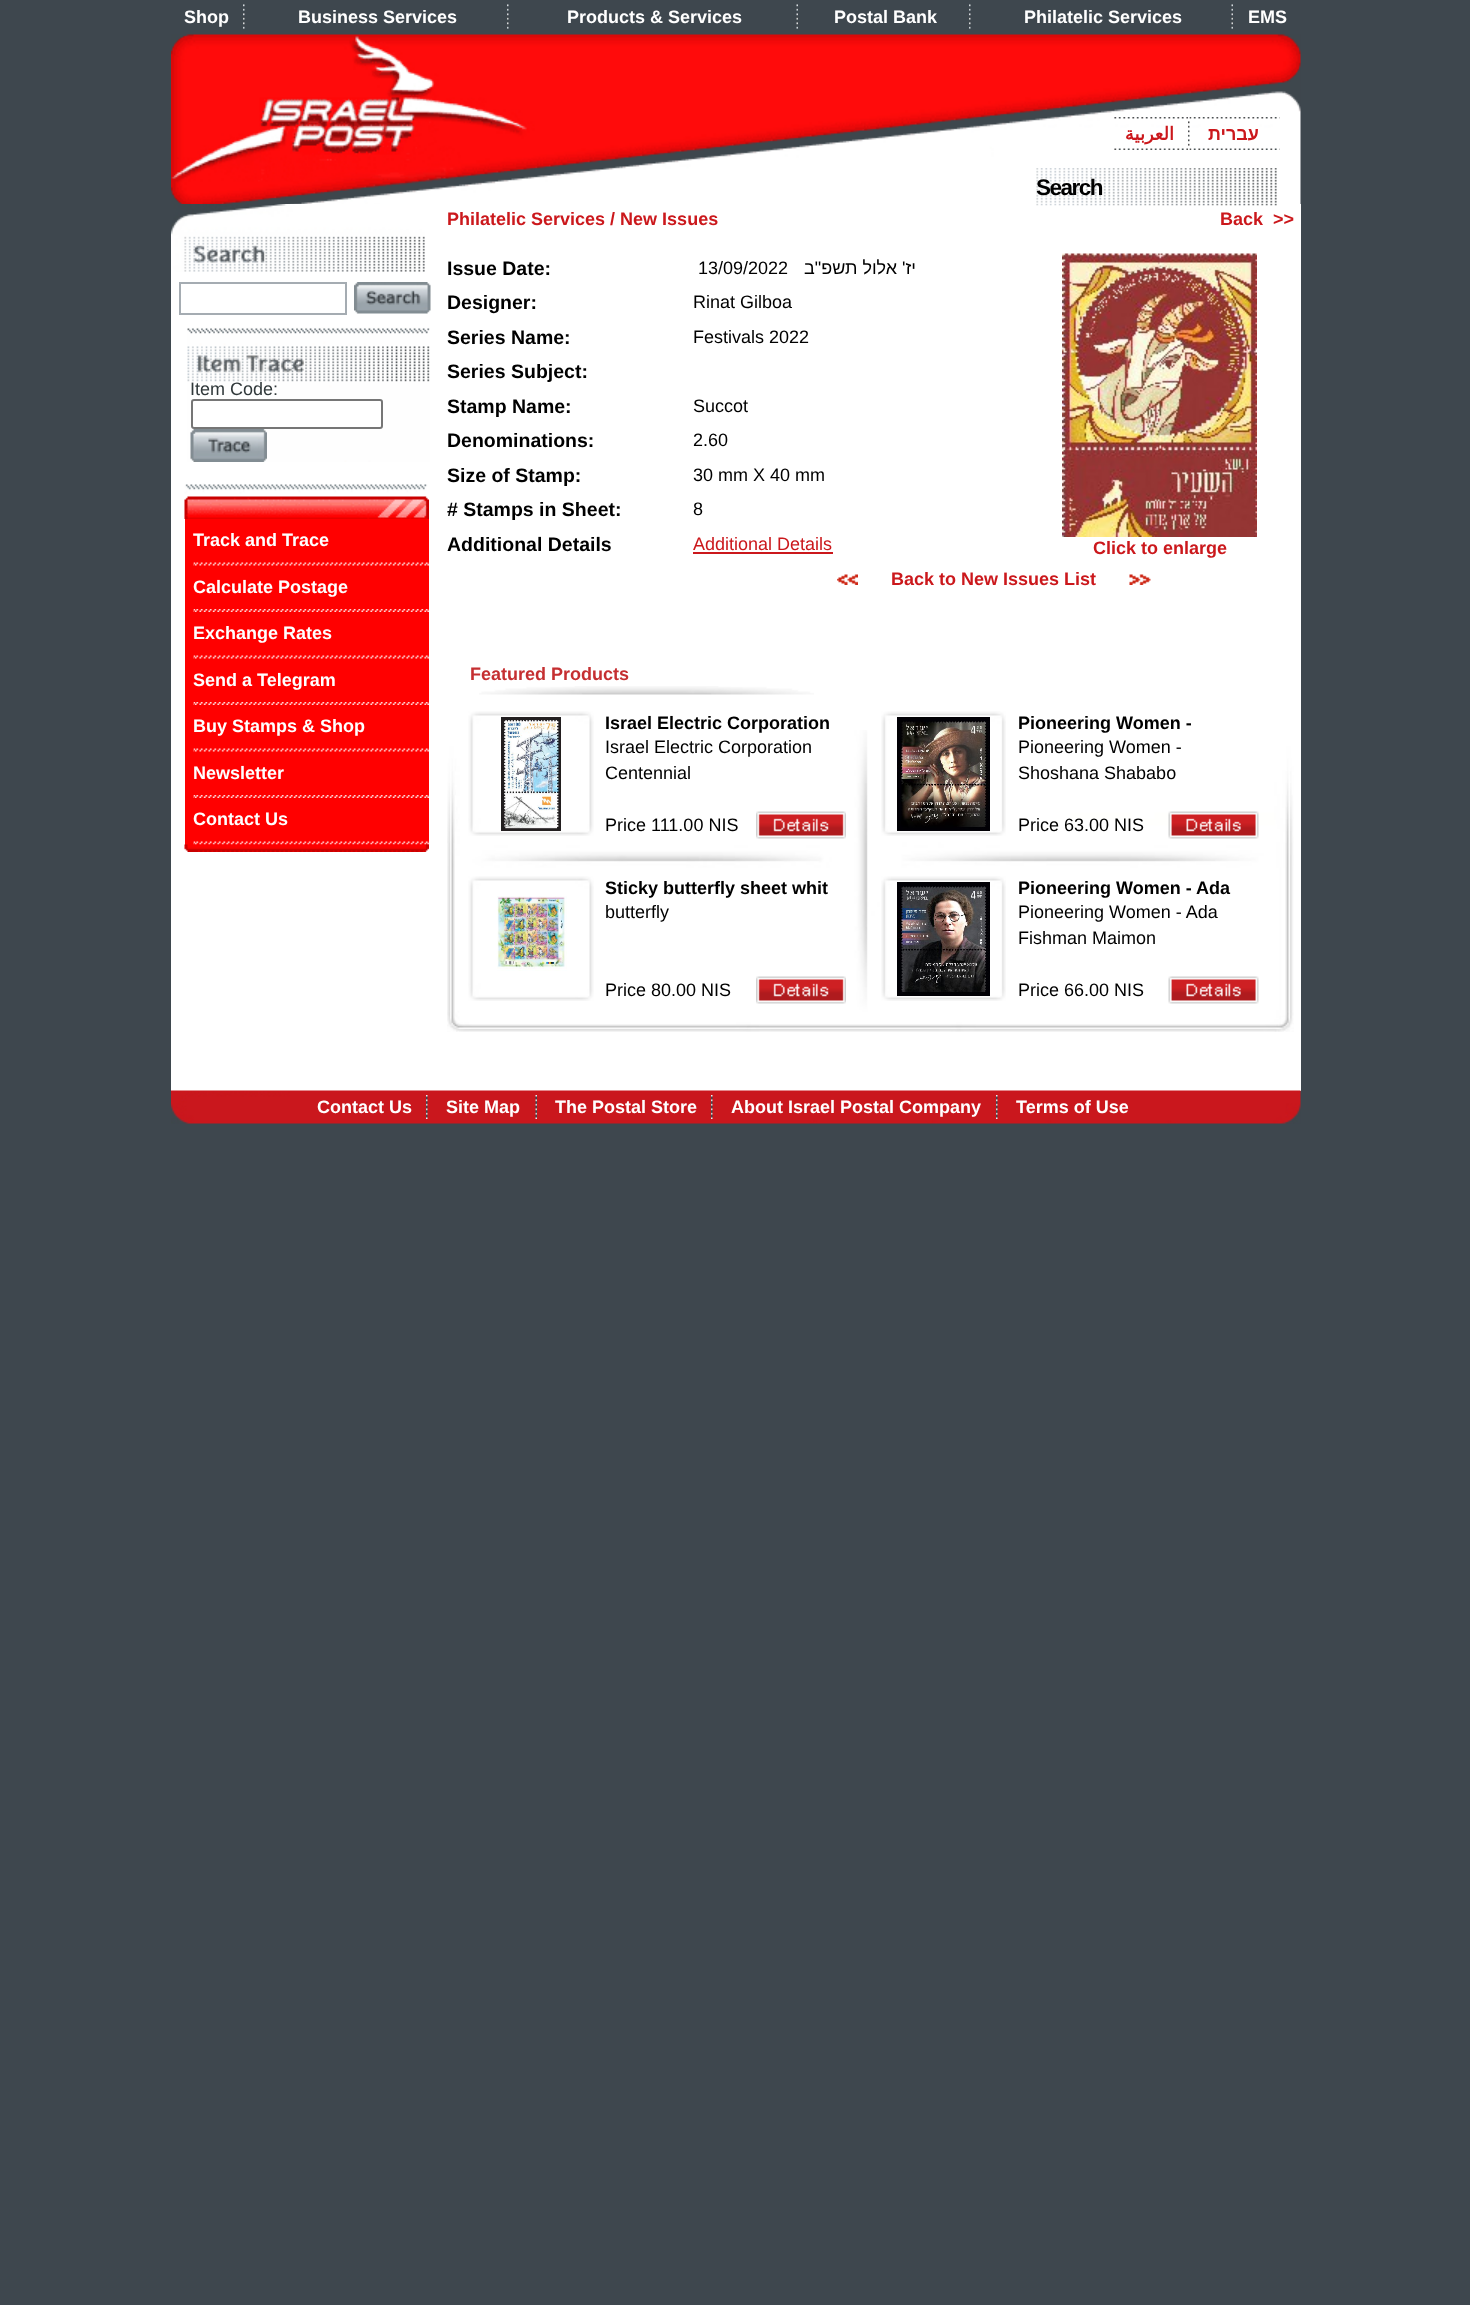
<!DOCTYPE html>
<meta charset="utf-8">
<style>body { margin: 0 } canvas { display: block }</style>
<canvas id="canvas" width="1470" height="2305"></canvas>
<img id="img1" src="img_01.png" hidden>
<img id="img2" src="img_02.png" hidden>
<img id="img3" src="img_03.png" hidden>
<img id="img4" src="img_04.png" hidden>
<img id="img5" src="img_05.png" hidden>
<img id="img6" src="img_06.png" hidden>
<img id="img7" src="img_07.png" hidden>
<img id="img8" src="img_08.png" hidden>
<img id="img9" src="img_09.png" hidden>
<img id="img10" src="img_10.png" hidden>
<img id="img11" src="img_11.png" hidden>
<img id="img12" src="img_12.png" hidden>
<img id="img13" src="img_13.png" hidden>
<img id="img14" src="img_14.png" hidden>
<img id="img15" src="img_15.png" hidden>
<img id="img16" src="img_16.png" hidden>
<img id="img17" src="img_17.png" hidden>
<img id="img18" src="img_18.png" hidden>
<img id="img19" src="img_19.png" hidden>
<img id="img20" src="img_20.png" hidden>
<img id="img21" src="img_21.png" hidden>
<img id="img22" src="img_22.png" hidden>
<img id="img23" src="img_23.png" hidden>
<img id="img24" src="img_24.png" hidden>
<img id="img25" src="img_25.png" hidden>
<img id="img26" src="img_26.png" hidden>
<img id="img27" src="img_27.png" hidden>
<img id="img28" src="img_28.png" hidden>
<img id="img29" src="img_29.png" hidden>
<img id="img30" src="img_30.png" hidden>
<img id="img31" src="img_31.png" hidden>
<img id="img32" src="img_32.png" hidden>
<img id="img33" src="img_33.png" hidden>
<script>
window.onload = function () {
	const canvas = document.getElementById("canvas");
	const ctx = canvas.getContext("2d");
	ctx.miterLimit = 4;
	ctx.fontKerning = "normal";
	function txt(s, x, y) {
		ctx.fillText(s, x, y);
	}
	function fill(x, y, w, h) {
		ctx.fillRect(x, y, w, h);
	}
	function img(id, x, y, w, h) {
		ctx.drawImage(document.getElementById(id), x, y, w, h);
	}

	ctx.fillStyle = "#3E474E";
	fill(0, 0, 1470, 2305);
	img("img1", 243, 4, 2, 25);
	img("img1", 507, 4, 2, 25);
	img("img2", 796, 4, 2, 25);
	img("img1", 969, 4, 2, 25);
	img("img2", 1231, 4, 2, 25);
	img("img3", 171, 34, 1130, 170);
	img("img4", 1114, 117, 74, 33);
	img("img5", 1188, 121, 2, 25);
	img("img6", 1189, 117, 91, 33);
	ctx.fillStyle = "#FFFFFF";
	fill(171, 204, 1130, 887);
	img("img7", 1036, 168, 241, 38);
	img("img8", 171, 204, 254, 68);
	ctx.strokeStyle = "#A5ACB2";
	ctx.lineWidth = 2;
	ctx.strokeRect(180, 283, 166, 31);
	img("img9", 354, 282, 77, 32);
	img("img10", 187, 327, 243, 135);
	ctx.beginPath();
	ctx.roundRect(192, 400, 190, 28, 2);
	ctx.fill();
	ctx.strokeStyle = "#767676";
	ctx.stroke();
	img("img11", 190, 429, 77, 33);
	ctx.fillStyle = "#FF0000";
	fill(185, 519, 244, 326);
	img("img12", 184, 483, 245, 36);
	img("img13", 193, 562, 236, 4);
	img("img14", 193, 609, 236, 3);
	img("img13", 193, 655, 236, 4);
	img("img14", 193, 702, 236, 3);
	img("img13", 193, 748, 236, 4);
	img("img15", 193, 795, 236, 3);
	img("img13", 193, 841, 236, 4);
	img("img16", 184, 844, 245, 8);
	img("img17", 1062, 253, 195, 284);
	ctx.fillStyle = "#CB181C";
	fill(693, 552, 140, 2);
	img("img18", 837, 574, 21, 11);
	img("img19", 1129, 574, 22, 11);
	img("img20", 479, 686, 335, 9);
	img("img21", 447, 730, 847, 302);
	img("img22", 468, 711, 126, 125);
	img("img23", 501, 717, 60, 114);
	img("img24", 756, 811, 90, 28);
	img("img22", 468, 876, 126, 125);
	img("img25", 497, 896, 70, 75);
	img("img24", 756, 976, 90, 28);
	img("img26", 881, 711, 125, 125);
	img("img27", 897, 717, 93, 114);
	img("img28", 1168, 811, 91, 28);
	img("img26", 881, 876, 125, 125);
	img("img29", 897, 882, 93, 114);
	img("img30", 1168, 976, 91, 28);
	img("img31", 171, 1090, 1130, 34);
	img("img32", 426, 1095, 2, 24);
	img("img33", 535, 1095, 2, 24);
	img("img32", 711, 1095, 2, 24);
	img("img32", 996, 1095, 2, 24);
	ctx.font = "bold 18px Liberation Sans";
	ctx.fillStyle = "#FFFFFF";
	txt("Shop", 184, 23);
	txt("Business Services", 298, 23);
	txt("Products & Services", 567, 23);
	txt("Postal Bank", 834, 23);
	txt("Philatelic Services", 1024, 23);
	txt("EMS", 1248, 23);
	ctx.direction = "rtl";
	ctx.font = "bold 18px DejaVu Sans";
	ctx.fillStyle = "#CB181C";
	txt("العربية", 1174, 140);
	ctx.font = "bold 18px Liberation Sans";
	txt("עברית", 1259, 140);
	ctx.letterSpacing = "-1.5px";
	ctx.direction = "ltr";
	ctx.font = "bold 22.5px Liberation Sans";
	ctx.fillStyle = "#000000";
	txt("Search", 1036, 195);
	ctx.letterSpacing = "0px";
	ctx.font = "18px Liberation Sans";
	ctx.fillStyle = "#30383A";
	txt("Item Code:", 190, 395);
	ctx.font = "bold 18px Liberation Sans";
	ctx.fillStyle = "#FFFFFF";
	txt("Track and Trace", 193, 546);
	txt("Calculate Postage", 193, 593);
	txt("Exchange Rates", 193, 639);
	txt("Send a Telegram", 193, 686);
	txt("Buy Stamps & Shop", 193, 732);
	txt("Newsletter", 193, 779);
	txt("Contact Us", 193, 825);
	ctx.fillStyle = "#CB181C";
	txt("Philatelic Services / New Issues", 447, 225);
	txt("Back  >>", 1220, 225);
	ctx.font = "bold 19.5px Liberation Sans";
	ctx.fillStyle = "#000000";
	txt("Issue Date:", 447, 275);
	ctx.font = "18px Liberation Sans";
	txt("13/09/2022", 698, 274);
	ctx.direction = "rtl";
	txt("יז' אלול תשפ\"ב", 916, 274);
	ctx.direction = "ltr";
	ctx.font = "bold 18px Liberation Sans";
	ctx.fillStyle = "#CB181C";
	txt("Click to enlarge", 1093, 554);
	ctx.font = "bold 19.5px Liberation Sans";
	ctx.fillStyle = "#000000";
	txt("Designer:", 447, 309);
	ctx.font = "18px Liberation Sans";
	txt("Rinat Gilboa", 693, 308);
	ctx.font = "bold 19.5px Liberation Sans";
	txt("Series Name:", 447, 344);
	ctx.font = "18px Liberation Sans";
	txt("Festivals 2022", 693, 343);
	ctx.font = "bold 19.5px Liberation Sans";
	txt("Series Subject:", 447, 378);
	txt("Stamp Name:", 447, 413);
	ctx.font = "18px Liberation Sans";
	txt("Succot", 693, 412);
	ctx.font = "bold 19.5px Liberation Sans";
	txt("Denominations:", 447, 447);
	ctx.font = "18px Liberation Sans";
	txt("2.60", 693, 446);
	ctx.font = "bold 19.5px Liberation Sans";
	txt("Size of Stamp:", 447, 482);
	ctx.font = "18px Liberation Sans";
	txt("30 mm X 40 mm", 693, 481);
	ctx.font = "bold 19.5px Liberation Sans";
	txt("# Stamps in Sheet:", 447, 516);
	ctx.font = "18px Liberation Sans";
	txt("8", 693, 515);
	ctx.font = "bold 19.5px Liberation Sans";
	txt("Additional Details", 447, 551);
	ctx.font = "18px Liberation Sans";
	ctx.fillStyle = "#CB181C";
	txt("Additional Details", 693, 550);
	ctx.font = "bold 18px Liberation Sans";
	txt("Back to New Issues List", 891, 585);
	ctx.fillStyle = "#C52F31";
	txt("Featured Products", 470, 680);
	ctx.fillStyle = "#000000";
	txt("Israel Electric Corporation", 605, 729);
	ctx.font = "18px Liberation Sans";
	txt("Israel Electric Corporation", 605, 753);
	txt("Centennial", 605, 779);
	txt("Price 111.00 NIS", 605, 831);
	ctx.font = "bold 18px Liberation Sans";
	txt("Sticky butterfly sheet whit", 605, 894);
	ctx.font = "18px Liberation Sans";
	txt("butterfly", 605, 918);
	txt("Price 80.00 NIS", 605, 996);
	ctx.font = "bold 18px Liberation Sans";
	txt("Pioneering Women -", 1018, 729);
	ctx.font = "18px Liberation Sans";
	txt("Pioneering Women -", 1018, 753);
	txt("Shoshana Shababo", 1018, 779);
	txt("Price 63.00 NIS", 1018, 831);
	ctx.font = "bold 18px Liberation Sans";
	txt("Pioneering Women - Ada", 1018, 894);
	ctx.font = "18px Liberation Sans";
	txt("Pioneering Women - Ada", 1018, 918);
	txt("Fishman Maimon", 1018, 944);
	txt("Price 66.00 NIS", 1018, 996);
	ctx.font = "bold 18px Liberation Sans";
	ctx.fillStyle = "#FFFFFF";
	txt("Contact Us", 317, 1113);
	txt("Site Map", 446, 1113);
	txt("The Postal Store", 555, 1113);
	txt("About Israel Postal Company", 731, 1113);
	txt("Terms of Use", 1016, 1113);
};
</script>
